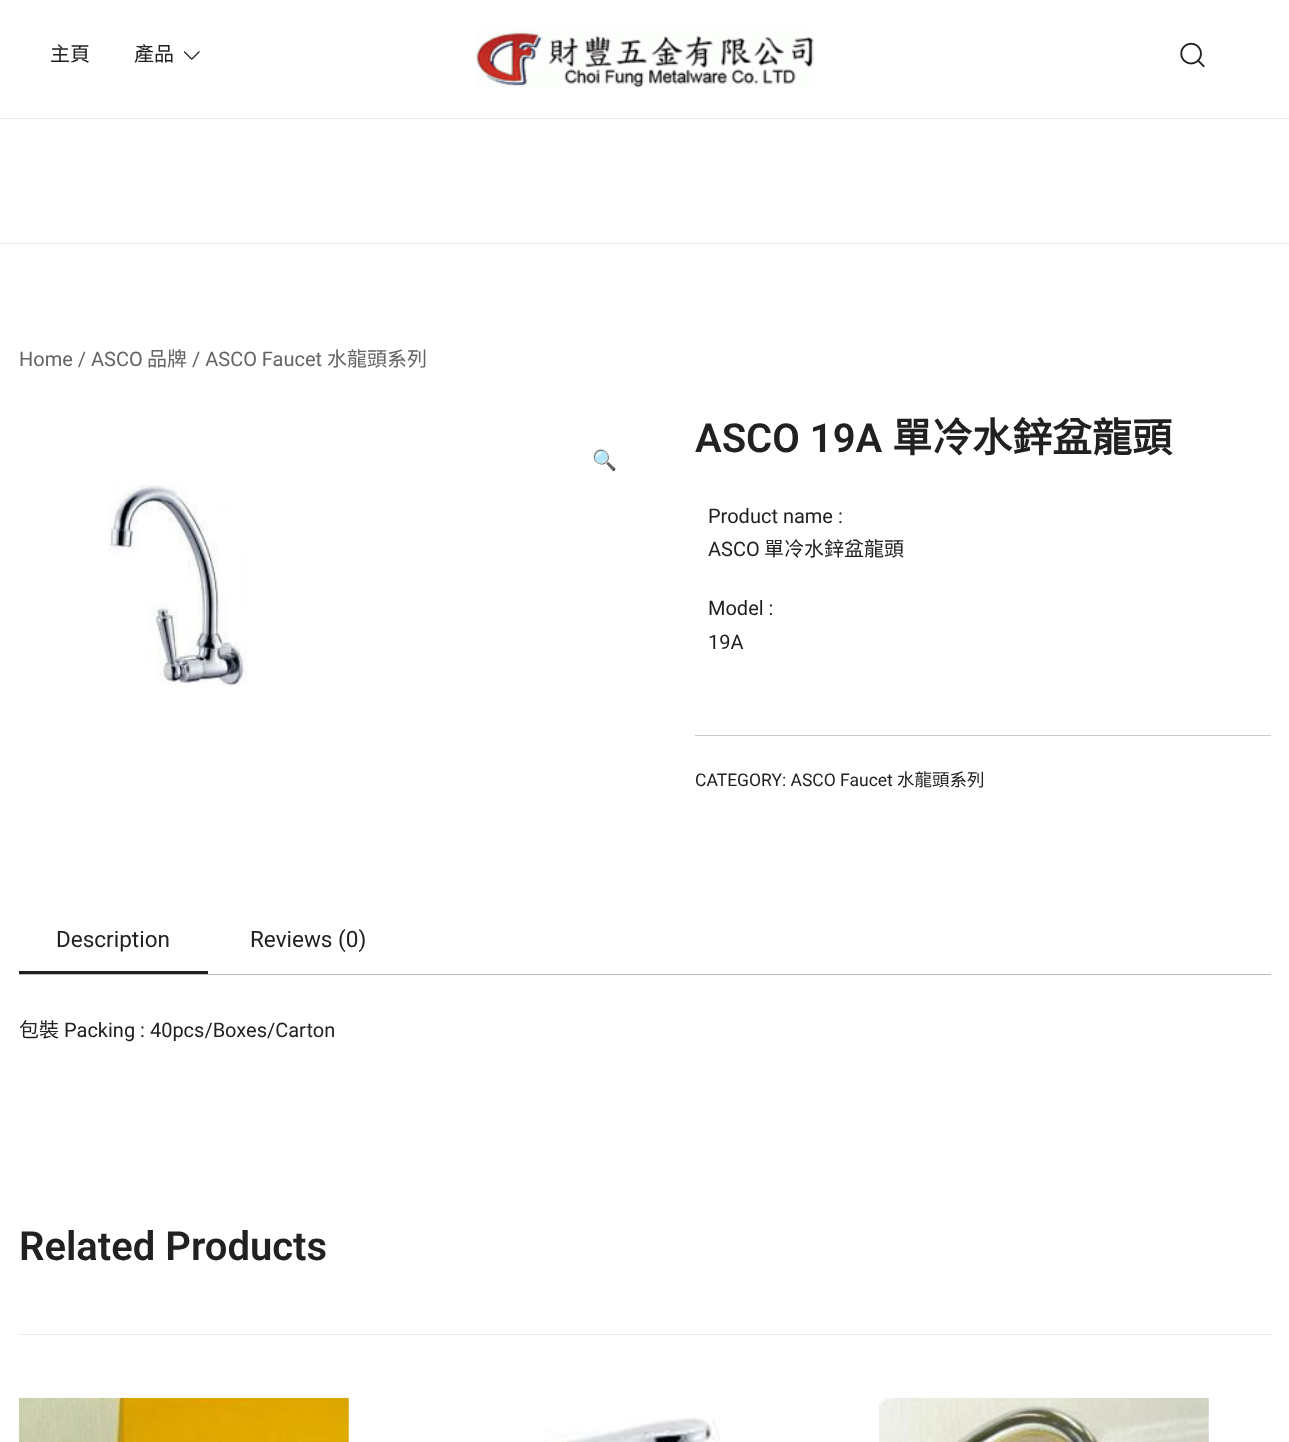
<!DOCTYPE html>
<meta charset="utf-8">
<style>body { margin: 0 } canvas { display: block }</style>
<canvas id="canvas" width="1289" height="1442"></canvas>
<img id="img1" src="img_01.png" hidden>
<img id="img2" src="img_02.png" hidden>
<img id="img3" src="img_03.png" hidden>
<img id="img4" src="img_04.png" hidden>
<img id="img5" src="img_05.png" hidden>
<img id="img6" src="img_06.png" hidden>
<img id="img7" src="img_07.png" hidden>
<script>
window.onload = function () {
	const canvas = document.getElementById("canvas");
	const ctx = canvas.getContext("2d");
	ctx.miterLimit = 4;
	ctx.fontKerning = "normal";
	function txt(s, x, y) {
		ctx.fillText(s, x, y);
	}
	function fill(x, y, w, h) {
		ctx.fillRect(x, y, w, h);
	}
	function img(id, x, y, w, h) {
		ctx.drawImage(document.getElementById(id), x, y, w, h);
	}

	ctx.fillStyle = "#FFFFFF";
	fill(0, 0, 1289, 1442);
	ctx.fillStyle = "#EAEAEA";
	fill(0, 118, 1289, 1);
	img("img1", 184, 51, 16, 9);
	img("img2", 475, 30, 339, 58);
	img("img3", 1180, 42, 25, 26);
	fill(0, 243, 1289, 1);
	img("img4", 107, 484, 140, 202);
	ctx.fillStyle = "#CCCCCC";
	fill(695, 735, 576, 1);
	ctx.fillStyle = "#BCBCBC";
	fill(19, 974, 1252, 1);
	ctx.fillStyle = "#212121";
	fill(19, 971, 189, 3);
	ctx.fillStyle = "#E9E9E9";
	fill(19, 1334, 1252, 1);
	img("img5", 18, 1397, 331, 45);
	img("img6", 544, 1418, 177, 24);
	img("img7", 879, 1397, 330, 45);
	ctx.font = "20px Noto Sans CJK TC";
	ctx.fillStyle = "#212121";
	txt("主頁", 50, 61);
	txt("產品", 134, 61);
	ctx.font = "20px Roboto";
	ctx.fillStyle = "#646464";
	txt("Home / ASCO", 19, 366);
	ctx.font = "20px Noto Sans CJK TC";
	txt("品牌", 147, 366);
	ctx.font = "20px Roboto";
	txt("/ ASCO Faucet", 192, 366);
	ctx.font = "20px Noto Sans CJK TC";
	txt("水龍頭系列", 327, 366);
	ctx.font = "20px Noto Color Emoji";
	ctx.fillStyle = "#212121";
	txt("🔍", 592, 467);
	ctx.font = "600 40px Roboto";
	txt("ASCO 19A", 695, 452);
	ctx.font = "bold 40px Noto Sans CJK TC";
	txt("單冷水鋅盆龍頭", 892, 452);
	ctx.font = "20px Roboto";
	txt("Product name :", 708, 523);
	txt("ASCO", 708, 556);
	ctx.font = "20px Noto Sans CJK TC";
	txt("單冷水鋅盆龍頭", 764, 556);
	ctx.font = "20px Roboto";
	txt("Model :", 708, 615);
	txt("19A", 708, 649);
	ctx.font = "17.5px Roboto";
	txt("CATEGORY: ASCO Faucet", 695, 786);
	ctx.font = "17.5px Noto Sans CJK TC";
	txt("水龍頭系列", 897, 786);
	ctx.font = "22.5px Roboto";
	txt("Description", 56, 947);
	txt("Reviews (0)", 250, 947);
	ctx.font = "20px Noto Sans CJK TC";
	txt("包裝", 19, 1037);
	ctx.font = "20px Roboto";
	txt("Packing : 40pcs/Boxes/Carton", 64, 1037);
	ctx.font = "600 40px Roboto";
	txt("Related Products", 19, 1260);
};
</script>
